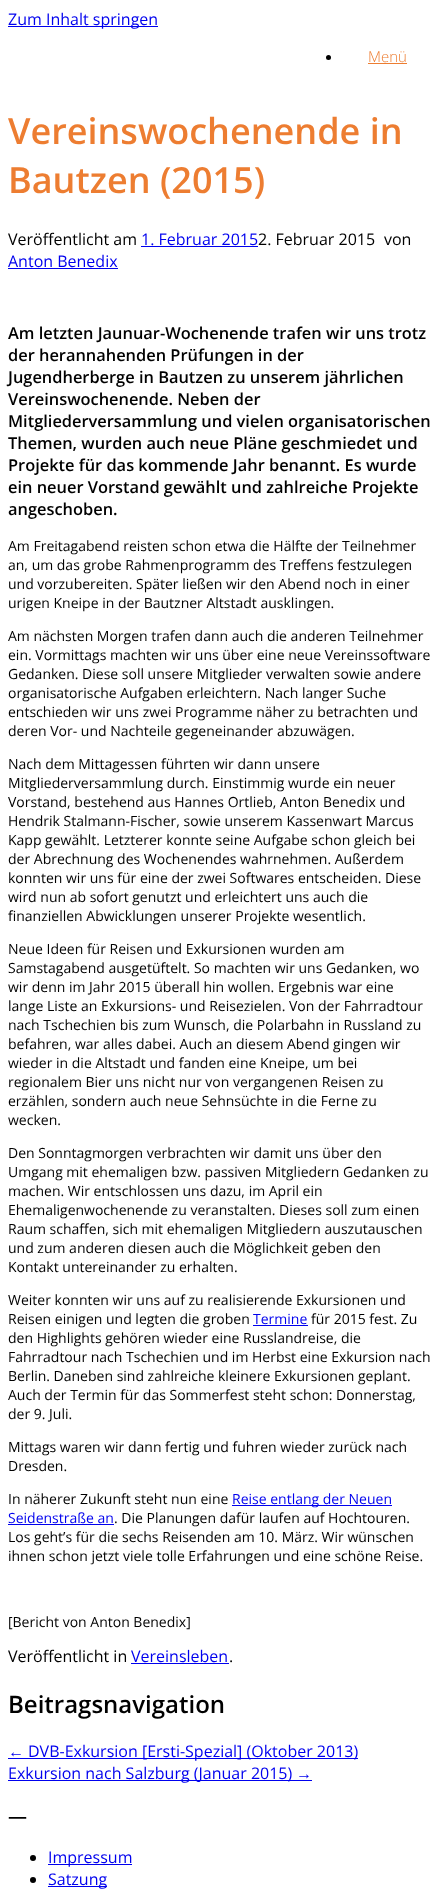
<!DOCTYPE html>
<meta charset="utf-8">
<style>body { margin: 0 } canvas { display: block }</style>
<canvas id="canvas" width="440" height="1891"></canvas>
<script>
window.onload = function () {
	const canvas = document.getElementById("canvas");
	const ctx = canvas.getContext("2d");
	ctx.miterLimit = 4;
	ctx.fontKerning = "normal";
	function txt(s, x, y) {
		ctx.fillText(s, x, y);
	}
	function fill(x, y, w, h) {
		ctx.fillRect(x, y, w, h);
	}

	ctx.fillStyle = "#FFFFFF";
	fill(0, 0, 440, 1891);
	ctx.fillStyle = "#0000EE";
	fill(8, 26, 150, 1);
	ctx.fillStyle = "#000000";
	ctx.beginPath();
	ctx.arc(328.5, 57.5, 2.5, 0, Math.PI * 2);
	ctx.fill();
	ctx.fillStyle = "#ED7D31";
	fill(368, 63, 39, 1);
	ctx.fillStyle = "#0000EE";
	fill(141, 246, 117, 1);
	fill(8, 268, 110, 1);
	fill(253, 1325, 55, 1);
	fill(232, 1505, 160, 1);
	fill(8, 1524, 106, 1);
	fill(131, 1663, 98, 1);
	fill(8, 1758, 350, 1);
	fill(8, 1780, 304, 1);
	ctx.fillStyle = "#000000";
	ctx.beginPath();
	ctx.arc(33, 1858, 3, 0, Math.PI * 2);
	ctx.fill();
	ctx.fillStyle = "#0000EE";
	fill(48, 1864, 84, 1);
	ctx.fillStyle = "#000000";
	ctx.beginPath();
	ctx.arc(33, 1880, 3, 0, Math.PI * 2);
	ctx.fill();
	ctx.fillStyle = "#0000EE";
	fill(48, 1886, 59, 1);
	ctx.font = "16px Open Sans";
	txt("Zum Inhalt springen", 8, 25);
	ctx.font = "300 15px Open Sans";
	ctx.fillStyle = "#ED7D31";
	txt("Menü", 368, 62);
	ctx.font = "600 36px Open Sans";
	txt("Vereinswochenende in", 8, 144);
	txt("Bautzen (2015)", 8, 193);
	ctx.font = "16px Open Sans";
	ctx.fillStyle = "#000000";
	txt("Veröffentlicht am", 8, 245);
	ctx.fillStyle = "#0000EE";
	txt("1. Februar 2015", 141, 245);
	ctx.fillStyle = "#000000";
	txt("2. Februar 2015", 258, 245);
	txt("von", 384, 245);
	ctx.fillStyle = "#0000EE";
	txt("Anton Benedix", 8, 267);
	ctx.font = "600 16.4px Open Sans";
	ctx.fillStyle = "#000000";
	txt("Am letzten Jaunuar-Wochenende trafen wir uns trotz", 8, 339);
	txt("der herannahenden Prüfungen in der", 8, 361);
	txt("Jugendherberge in Bautzen zu unserem jährlichen", 8, 383);
	txt("Vereinswochenende. Neben der", 8, 405);
	txt("Mitgliederversammlung und vielen organisatorischen", 8, 427);
	txt("Themen, wurden auch neue Pläne geschmiedet und", 8, 449);
	txt("Projekte für das kommende Jahr benannt. Es wurde", 8, 471);
	txt("ein neuer Vorstand gewählt und zahlreiche Projekte", 8, 493);
	txt("angeschoben.", 8, 515);
	ctx.font = "14px Open Sans";
	txt("Am Freitagabend reisten schon etwa die Hälfte der Teilnehmer", 8, 551);
	txt("an, um das grobe Rahmenprogramm des Treffens festzulegen", 8, 570);
	txt("und vorzubereiten. Später ließen wir den Abend noch in einer", 8, 589);
	txt("urigen Kneipe in der Bautzner Altstadt ausklingen.", 8, 608);
	txt("Am nächsten Morgen trafen dann auch die anderen Teilnehmer", 8, 641);
	txt("ein. Vormittags machten wir uns über eine neue Vereinssoftware", 8, 660);
	txt("Gedanken. Diese soll unsere Mitglieder verwalten sowie andere", 8, 679);
	txt("organisatorische Aufgaben erleichtern. Nach langer Suche", 8, 698);
	txt("entschieden wir uns zwei Programme näher zu betrachten und", 8, 717);
	txt("deren Vor- und Nachteile gegeneinander abzuwägen.", 8, 736);
	txt("Nach dem Mittagessen führten wir dann unsere", 8, 769);
	txt("Mitgliederversammlung durch. Einstimmig wurde ein neuer", 8, 788);
	txt("Vorstand, bestehend aus Hannes Ortlieb, Anton Benedix und", 8, 807);
	txt("Hendrik Stalmann-Fischer, sowie unserem Kassenwart Marcus", 8, 826);
	txt("Kapp gewählt. Letzterer konnte seine Aufgabe schon gleich bei", 8, 845);
	txt("der Abrechnung des Wochenendes wahrnehmen. Außerdem", 8, 864);
	txt("konnten wir uns für eine der zwei Softwares entscheiden. Diese", 8, 883);
	txt("wird nun ab sofort genutzt und erleichtert uns auch die", 8, 902);
	txt("finanziellen Abwicklungen unserer Projekte wesentlich.", 8, 921);
	txt("Neue Ideen für Reisen und Exkursionen wurden am", 8, 954);
	txt("Samstagabend ausgetüftelt. So machten wir uns Gedanken, wo", 8, 973);
	txt("wir denn im Jahr 2015 überall hin wollen. Ergebnis war eine", 8, 992);
	txt("lange Liste an Exkursions- und Reisezielen. Von der Fahrradtour", 8, 1011);
	txt("nach Tschechien bis zum Wunsch, die Polarbahn in Russland zu", 8, 1030);
	txt("befahren, war alles dabei. Auch an diesem Abend gingen wir", 8, 1049);
	txt("wieder in die Altstadt und fanden eine Kneipe, um bei", 8, 1068);
	txt("regionalem Bier uns nicht nur von vergangenen Reisen zu", 8, 1087);
	txt("erzählen, sondern auch neue Sehnsüchte in die Ferne zu", 8, 1106);
	txt("wecken.", 8, 1125);
	txt("Den Sonntagmorgen verbrachten wir damit uns über den", 8, 1158);
	txt("Umgang mit ehemaligen bzw. passiven Mitgliedern Gedanken zu", 8, 1177);
	txt("machen. Wir entschlossen uns dazu, im April ein", 8, 1196);
	txt("Ehemaligenwochenende zu veranstalten. Dieses soll zum einen", 8, 1215);
	txt("Raum schaffen, sich mit ehemaligen Mitgliedern auszutauschen", 8, 1234);
	txt("und zum anderen diesen auch die Möglichkeit geben den", 8, 1253);
	txt("Kontakt untereinander zu erhalten.", 8, 1272);
	txt("Weiter konnten wir uns auf zu realisierende Exkursionen und", 8, 1305);
	txt("Reisen einigen und legten die groben", 8, 1324);
	ctx.fillStyle = "#0000EE";
	txt("Termine", 253, 1324);
	ctx.fillStyle = "#000000";
	txt("für 2015 fest. Zu", 311, 1324);
	txt("den Highlights gehören wieder eine Russlandreise, die", 8, 1343);
	txt("Fahrradtour nach Tschechien und im Herbst eine Exkursion nach", 8, 1362);
	txt("Berlin. Daneben sind zahlreiche kleinere Exkursionen geplant.", 8, 1381);
	txt("Auch der Termin für das Sommerfest steht schon: Donnerstag,", 8, 1400);
	txt("der 9. Juli.", 8, 1419);
	txt("Mittags waren wir dann fertig und fuhren wieder zurück nach", 8, 1452);
	txt("Dresden.", 8, 1471);
	txt("In näherer Zukunft steht nun eine", 8, 1504);
	ctx.fillStyle = "#0000EE";
	txt("Reise entlang der Neuen", 232, 1504);
	txt("Seidenstraße an", 8, 1523);
	ctx.fillStyle = "#000000";
	txt(". Die Planungen dafür laufen auf Hochtouren.", 114, 1523);
	txt("Los geht’s für die sechs Reisenden am 10. März. Wir wünschen", 8, 1542);
	txt("ihnen schon jetzt viele tolle Erfahrungen und eine schöne Reise.", 8, 1561);
	txt("[Bericht von Anton Benedix]", 8, 1627);
	ctx.font = "16px Open Sans";
	txt("Veröffentlicht in", 8, 1662);
	ctx.fillStyle = "#0000EE";
	txt("Vereinsleben", 131, 1662);
	ctx.fillStyle = "#000000";
	txt(".", 229, 1662);
	ctx.font = "600 24px Open Sans";
	txt("Beitragsnavigation", 8, 1713);
	ctx.font = "16px Liberation Serif";
	ctx.fillStyle = "#0000EE";
	txt("←", 8, 1757);
	ctx.font = "16px Open Sans";
	txt("DVB-Exkursion [Ersti-Spezial] (Oktober 2013)", 28, 1757);
	txt("Exkursion nach Salzburg (Januar 2015)", 8, 1779);
	ctx.font = "16px Liberation Serif";
	txt("→", 296, 1779);
	ctx.font = "600 19px Open Sans";
	ctx.fillStyle = "#000000";
	txt("—", 8, 1823);
	ctx.font = "16px Open Sans";
	ctx.fillStyle = "#0000EE";
	txt("Impressum", 48, 1863);
	txt("Satzung", 48, 1885);
};
</script>
